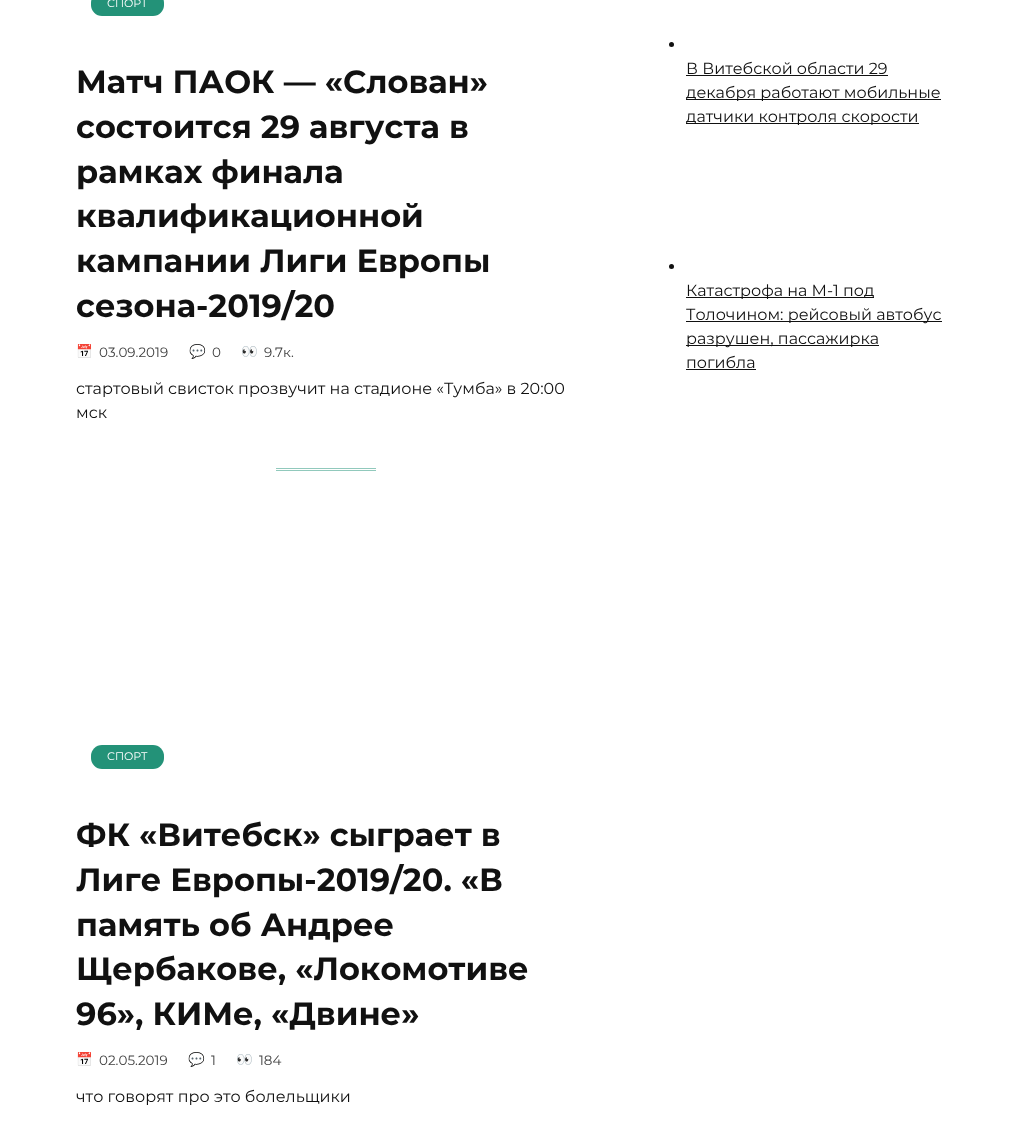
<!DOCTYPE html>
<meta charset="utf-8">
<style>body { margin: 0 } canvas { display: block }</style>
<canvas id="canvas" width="1022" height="1122"></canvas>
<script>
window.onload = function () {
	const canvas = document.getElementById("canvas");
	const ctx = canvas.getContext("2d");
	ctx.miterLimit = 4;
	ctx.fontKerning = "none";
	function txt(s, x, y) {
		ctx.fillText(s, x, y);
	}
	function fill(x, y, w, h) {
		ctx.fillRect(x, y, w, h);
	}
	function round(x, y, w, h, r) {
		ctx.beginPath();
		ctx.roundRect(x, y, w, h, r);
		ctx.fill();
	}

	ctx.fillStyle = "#FFFFFF";
	fill(0, 0, 1022, 1122);
	ctx.fillStyle = "#239278";
	round(91, -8, 73, 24, 11);
	ctx.fillStyle = "#91C9BC";
	fill(276, 468, 100, 1);
	fill(276, 470, 100, 1);
	ctx.fillStyle = "#239278";
	round(91, 745, 73, 24, 11);
	ctx.fillStyle = "#111111";
	ctx.beginPath();
	ctx.arc(671.5, 44.5, 2.5, 0, Math.PI * 2);
	ctx.fill();
	fill(686, 75, 202, 1);
	fill(686, 99, 255, 1);
	fill(686, 123, 233, 1);
	ctx.beginPath();
	ctx.arc(671.5, 266.5, 2.5, 0, Math.PI * 2);
	ctx.fill();
	fill(686, 297, 188, 1);
	fill(686, 321, 256, 1);
	fill(686, 345, 193, 1);
	fill(686, 369, 70, 1);
	ctx.font = "11px Montserrat";
	ctx.fillStyle = "#FFFFFF";
	txt("СПОРТ", 107, 7);
	ctx.font = "bold 32px Montserrat";
	ctx.fillStyle = "#111111";
	txt("Матч ПАОК — «Слован»", 76, 93);
	txt("состоится 29 августа в", 76, 138);
	txt("рамках финала", 76, 183);
	txt("квалификационной", 76, 227);
	txt("кампании Лиги Европы", 76, 272);
	txt("сезона-2019/20", 76, 317);
	ctx.font = "13.5px Noto Color Emoji";
	ctx.fillStyle = "#4FA893";
	txt("📅", 76, 356);
	ctx.font = "13.5px Montserrat";
	ctx.fillStyle = "#414141";
	txt("03.09.2019", 99, 357);
	ctx.font = "13.5px Noto Color Emoji";
	ctx.fillStyle = "#4FA893";
	txt("💬", 189, 356);
	ctx.font = "13.5px Montserrat";
	ctx.fillStyle = "#414141";
	txt("0", 212, 357);
	ctx.font = "13.5px Noto Color Emoji";
	ctx.fillStyle = "#4FA893";
	txt("👀", 241, 356);
	ctx.font = "13.5px Montserrat";
	ctx.fillStyle = "#414141";
	txt("9.7к.", 264, 357);
	ctx.font = "16px Montserrat";
	ctx.fillStyle = "#111111";
	txt("стартовый свисток прозвучит на стадионе «Тумба» в 20:00", 76, 394);
	txt("мск", 76, 418);
	ctx.font = "11px Montserrat";
	ctx.fillStyle = "#FFFFFF";
	txt("СПОРТ", 107, 760);
	ctx.font = "bold 32px Montserrat";
	ctx.fillStyle = "#111111";
	txt("ФК «Витебск» сыграет в", 76, 846);
	txt("Лиге Европы-2019/20. «В", 76, 891);
	txt("память об Андрее", 76, 936);
	txt("Щербакове, «Локомотиве", 76, 980);
	txt("96», КИМе, «Двине»", 76, 1025);
	ctx.font = "13.5px Noto Color Emoji";
	ctx.fillStyle = "#4FA893";
	txt("📅", 76, 1064);
	ctx.font = "13.5px Montserrat";
	ctx.fillStyle = "#414141";
	txt("02.05.2019", 99, 1065);
	ctx.font = "13.5px Noto Color Emoji";
	ctx.fillStyle = "#4FA893";
	txt("💬", 188, 1064);
	ctx.font = "13.5px Montserrat";
	ctx.fillStyle = "#414141";
	txt("1", 211, 1065);
	ctx.font = "13.5px Noto Color Emoji";
	ctx.fillStyle = "#4FA893";
	txt("👀", 236, 1064);
	ctx.font = "13.5px Montserrat";
	ctx.fillStyle = "#414141";
	txt("184", 259, 1065);
	ctx.font = "16px Montserrat";
	ctx.fillStyle = "#111111";
	txt("что говорят про это болельщики", 76, 1102);
	txt("В Витебской области 29", 686, 74);
	txt("декабря работают мобильные", 686, 98);
	txt("датчики контроля скорости", 686, 122);
	txt("Катастрофа на М-1 под", 686, 296);
	txt("Толочином: рейсовый автобус", 686, 320);
	txt("разрушен, пассажирка", 686, 344);
	txt("погибла", 686, 368);
};
</script>
